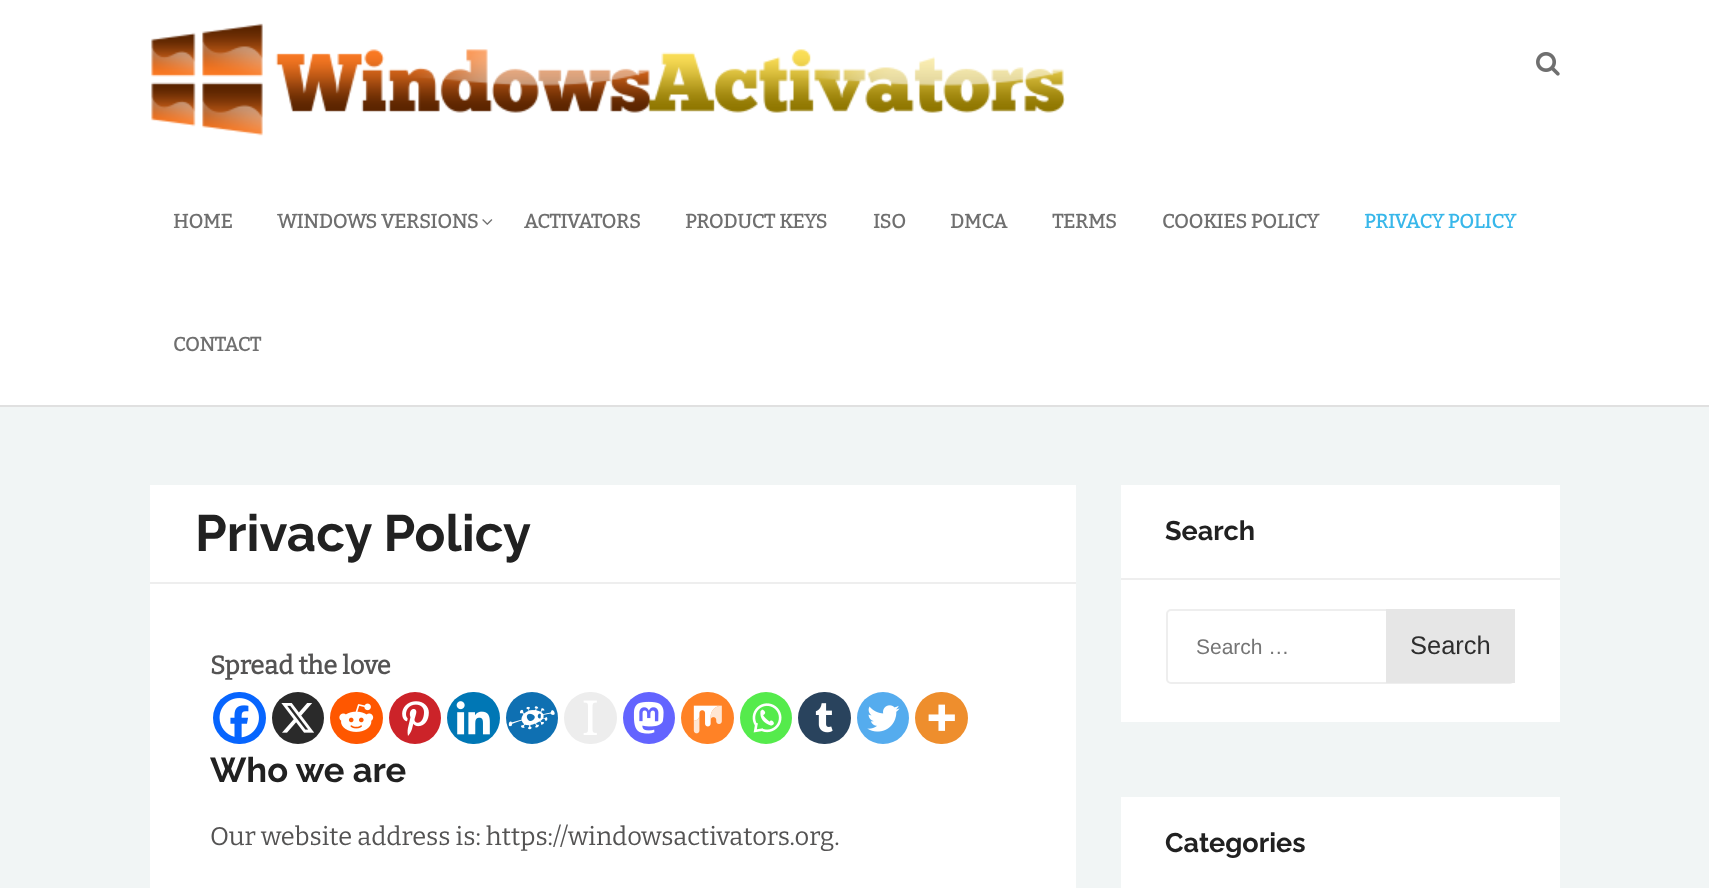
<!DOCTYPE html>
<meta charset="utf-8">
<style>body { margin: 0 } canvas { display: block }</style>
<canvas id="canvas" width="1709" height="888"></canvas>
<img id="img1" src="img_01.png" hidden>
<img id="img2" src="img_02.png" hidden>
<img id="img3" src="img_03.png" hidden>
<img id="img4" src="img_04.png" hidden>
<img id="img5" src="img_05.png" hidden>
<img id="img6" src="img_06.png" hidden>
<img id="img7" src="img_07.png" hidden>
<img id="img8" src="img_08.png" hidden>
<img id="img9" src="img_09.png" hidden>
<img id="img10" src="img_10.png" hidden>
<img id="img11" src="img_11.png" hidden>
<img id="img12" src="img_12.png" hidden>
<img id="img13" src="img_13.png" hidden>
<img id="img14" src="img_14.png" hidden>
<img id="img15" src="img_15.png" hidden>
<img id="img16" src="img_16.png" hidden>
<script>
window.onload = function () {
	const canvas = document.getElementById("canvas");
	const ctx = canvas.getContext("2d");
	ctx.miterLimit = 4;
	ctx.fontKerning = "normal";
	function txt(s, x, y) {
		ctx.fillText(s, x, y);
	}
	function fill(x, y, w, h) {
		ctx.fillRect(x, y, w, h);
	}
	function round(x, y, w, h, r) {
		ctx.beginPath();
		ctx.roundRect(x, y, w, h, r);
		ctx.fill();
	}
	function img(id, x, y, w, h) {
		ctx.drawImage(document.getElementById(id), x, y, w, h);
	}

	ctx.fillStyle = "#F1F5F5";
	fill(0, 0, 1709, 888);
	ctx.fillStyle = "#FFFFFF";
	fill(0, 0, 1709, 405);
	ctx.fillStyle = "#E0E0E0";
	fill(0, 405, 1709, 2);
	img("img1", 151, 23, 914, 113);
	img("img2", 1536, 52, 24, 24);
	img("img3", 482, 219, 11, 6);
	ctx.fillStyle = "#FFFFFF";
	fill(150, 485, 926, 97);
	ctx.fillStyle = "#EEEEEE";
	fill(150, 582, 926, 2);
	ctx.fillStyle = "#FFFFFF";
	fill(150, 584, 926, 304);
	ctx.fillStyle = "#0765FE";
	round(213, 692, 53, 52, 26);
	img("img4", 219, 698, 40, 40);
	ctx.fillStyle = "#2A2A2A";
	ctx.beginPath();
	ctx.arc(298, 718, 26, 0, Math.PI * 2);
	ctx.fill();
	img("img5", 281, 703, 33, 30);
	ctx.fillStyle = "#FF5700";
	round(330, 692, 53, 52, 26);
	img("img6", 339, 703, 35, 29);
	ctx.fillStyle = "#CC2329";
	ctx.beginPath();
	ctx.arc(415, 718, 26, 0, Math.PI * 2);
	ctx.fill();
	img("img7", 402, 701, 27, 35);
	ctx.fillStyle = "#0077B5";
	round(447, 692, 53, 52, 26);
	img("img8", 456, 701, 34, 34);
	ctx.fillStyle = "#0F70B2";
	ctx.beginPath();
	ctx.arc(532, 718, 26, 0, Math.PI * 2);
	ctx.fill();
	img("img9", 508, 706, 47, 24);
	ctx.fillStyle = "#EDEDED";
	round(564, 692, 53, 52, 26);
	img("img10", 583, 700, 14, 35);
	ctx.fillStyle = "#6364FF";
	ctx.beginPath();
	ctx.arc(649, 718, 26, 0, Math.PI * 2);
	ctx.fill();
	img("img11", 633, 701, 31, 33);
	ctx.fillStyle = "#FF8226";
	round(681, 692, 53, 52, 26);
	img("img12", 693, 705, 29, 29);
	ctx.fillStyle = "#55EB4C";
	ctx.beginPath();
	ctx.arc(766, 718, 26, 0, Math.PI * 2);
	ctx.fill();
	img("img13", 752, 703, 30, 30);
	ctx.fillStyle = "#29435D";
	round(798, 692, 53, 52, 26);
	img("img14", 815, 703, 18, 30);
	ctx.fillStyle = "#55ACEE";
	ctx.beginPath();
	ctx.arc(883, 718, 26, 0, Math.PI * 2);
	ctx.fill();
	img("img15", 867, 705, 33, 27);
	ctx.fillStyle = "#EE8E2D";
	round(915, 692, 53, 52, 26);
	img("img16", 928, 704, 27, 27);
	ctx.fillStyle = "#FFFFFF";
	fill(1121, 485, 439, 237);
	ctx.fillStyle = "#EEEEEE";
	fill(1121, 578, 439, 2);
	ctx.beginPath();
	ctx.roundRect(1167, 610, 347, 73, 4);
	ctx.strokeStyle = "#EEEEEE";
	ctx.lineWidth = 2;
	ctx.stroke();
	ctx.fillStyle = "#E6E6E6";
	fill(1386, 609, 129, 74);
	ctx.fillStyle = "#FFFFFF";
	fill(1121, 797, 439, 91);
	ctx.font = "bold 19.5px Bitter";
	ctx.fillStyle = "#6F6F6F";
	txt("HOME", 173, 228);
	txt("WINDOWS VERSIONS", 277, 228);
	txt("ACTIVATORS", 524, 228);
	txt("PRODUCT KEYS", 685, 228);
	txt("ISO", 873, 228);
	txt("DMCA", 950, 228);
	txt("TERMS", 1052, 228);
	txt("COOKIES POLICY", 1162, 228);
	ctx.fillStyle = "#38B7EA";
	txt("PRIVACY POLICY", 1364, 228);
	ctx.fillStyle = "#6F6F6F";
	txt("CONTACT", 173, 351);
	ctx.font = "bold 51px Raleway";
	ctx.fillStyle = "#212121";
	txt("Privacy Policy", 195, 551);
	ctx.font = "bold 25.5px Bitter";
	ctx.fillStyle = "#545353";
	txt("Spread the love", 210, 674);
	ctx.font = "bold 34.5px Raleway";
	ctx.fillStyle = "#212121";
	txt("Who we are", 210, 782);
	ctx.font = "100 25.5px Bitter";
	ctx.fillStyle = "#545353";
	txt("Our website address is: https://windowsactivators.org.", 210, 845);
	ctx.font = "bold 27px Raleway";
	ctx.fillStyle = "#212121";
	txt("Search", 1165, 540);
	ctx.font = "21px Liberation Sans";
	ctx.fillStyle = "#757575";
	txt("Search …", 1196, 654);
	ctx.font = "25.5px Liberation Sans";
	ctx.fillStyle = "#2E2E2E";
	txt("Search", 1410, 654);
	ctx.font = "bold 27px Raleway";
	ctx.fillStyle = "#212121";
	txt("Categories", 1165, 852);
};
</script>
